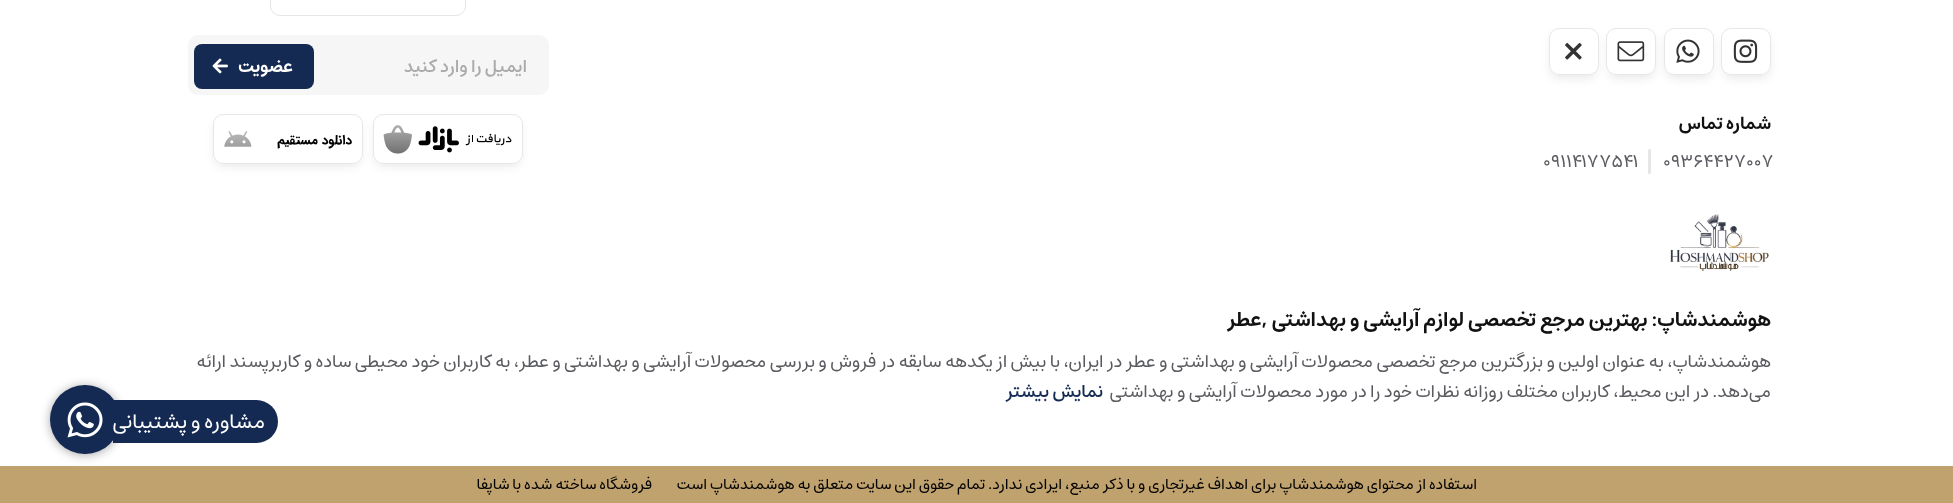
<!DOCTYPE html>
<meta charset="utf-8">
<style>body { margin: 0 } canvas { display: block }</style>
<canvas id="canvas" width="1953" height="503"></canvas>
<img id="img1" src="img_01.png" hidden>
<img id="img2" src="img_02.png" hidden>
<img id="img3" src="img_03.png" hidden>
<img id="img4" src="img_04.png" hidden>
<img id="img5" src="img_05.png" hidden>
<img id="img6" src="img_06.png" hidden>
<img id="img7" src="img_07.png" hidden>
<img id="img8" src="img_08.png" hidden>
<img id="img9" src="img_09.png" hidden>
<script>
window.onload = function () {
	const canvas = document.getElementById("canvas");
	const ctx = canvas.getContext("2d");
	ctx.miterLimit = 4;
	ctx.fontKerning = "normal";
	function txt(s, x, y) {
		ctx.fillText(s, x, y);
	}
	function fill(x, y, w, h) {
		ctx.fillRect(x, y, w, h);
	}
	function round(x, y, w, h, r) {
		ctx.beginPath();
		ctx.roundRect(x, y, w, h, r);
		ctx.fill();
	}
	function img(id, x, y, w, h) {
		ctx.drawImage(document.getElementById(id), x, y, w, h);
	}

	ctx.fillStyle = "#FFFFFF";
	fill(0, 0, 1953, 503);
	ctx.beginPath();
	ctx.roundRect(270.5, -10.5, 195, 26, 9.5);
	ctx.strokeStyle = "#E6E6E7";
	ctx.stroke();
	ctx.fillStyle = "#F6F6F6";
	round(188, 35, 361, 60, 10);
	ctx.fillStyle = "#152A53";
	round(194, 44, 120, 45, 8);
	img("img1", 212, 58, 16, 16);
	ctx.save();
	ctx.beginPath();
	ctx.moveTo(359, 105);
	ctx.lineTo(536, 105);
	ctx.lineTo(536, 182);
	ctx.lineTo(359, 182);
	ctx.closePath();
	ctx.moveTo(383, 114);
	ctx.lineTo(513, 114);
	ctx.bezierCurveTo(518.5, 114, 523, 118.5, 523, 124);
	ctx.lineTo(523, 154);
	ctx.bezierCurveTo(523, 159.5, 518.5, 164, 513, 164);
	ctx.lineTo(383, 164);
	ctx.bezierCurveTo(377.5, 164, 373, 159.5, 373, 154);
	ctx.lineTo(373, 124);
	ctx.bezierCurveTo(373, 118.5, 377.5, 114, 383, 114);
	ctx.closePath();
	ctx.clip("evenodd");
	ctx.fillStyle = "rgba(23, 23, 23, 0.1)";
	ctx.filter = "blur(5px)";
	ctx.beginPath();
	ctx.roundRect(375, 121, 145, 45, 8);
	ctx.fill();
	ctx.filter = "none";
	ctx.restore();
	img("img2", 383, 125, 129, 29);
	ctx.beginPath();
	ctx.roundRect(373.5, 114.5, 149, 49, 9.5);
	ctx.strokeStyle = "#E7E7E7";
	ctx.stroke();
	ctx.save();
	ctx.beginPath();
	ctx.moveTo(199, 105);
	ctx.lineTo(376, 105);
	ctx.lineTo(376, 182);
	ctx.lineTo(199, 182);
	ctx.closePath();
	ctx.moveTo(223, 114);
	ctx.lineTo(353, 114);
	ctx.bezierCurveTo(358.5, 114, 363, 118.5, 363, 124);
	ctx.lineTo(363, 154);
	ctx.bezierCurveTo(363, 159.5, 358.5, 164, 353, 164);
	ctx.lineTo(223, 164);
	ctx.bezierCurveTo(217.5, 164, 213, 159.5, 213, 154);
	ctx.lineTo(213, 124);
	ctx.bezierCurveTo(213, 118.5, 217.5, 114, 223, 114);
	ctx.closePath();
	ctx.clip("evenodd");
	ctx.fillStyle = "rgba(23, 23, 23, 0.1)";
	ctx.filter = "blur(5px)";
	ctx.beginPath();
	ctx.roundRect(215, 121, 145, 45, 8);
	ctx.fill();
	ctx.filter = "none";
	ctx.restore();
	img("img3", 224, 131, 128, 18);
	ctx.beginPath();
	ctx.roundRect(213.5, 114.5, 149, 49, 9.5);
	ctx.stroke();
	ctx.save();
	ctx.beginPath();
	ctx.moveTo(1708, 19);
	ctx.lineTo(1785, 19);
	ctx.lineTo(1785, 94);
	ctx.lineTo(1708, 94);
	ctx.closePath();
	ctx.moveTo(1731, 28);
	ctx.lineTo(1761, 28);
	ctx.bezierCurveTo(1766.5, 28, 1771, 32.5, 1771, 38);
	ctx.lineTo(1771, 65);
	ctx.bezierCurveTo(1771, 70.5, 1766.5, 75, 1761, 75);
	ctx.lineTo(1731, 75);
	ctx.bezierCurveTo(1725.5, 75, 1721, 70.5, 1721, 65);
	ctx.lineTo(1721, 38);
	ctx.bezierCurveTo(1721, 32.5, 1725.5, 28, 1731, 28);
	ctx.closePath();
	ctx.clip("evenodd");
	ctx.fillStyle = "rgba(16, 24, 40, 0.1)";
	ctx.filter = "blur(5px)";
	ctx.beginPath();
	ctx.roundRect(1724, 35, 45, 43, 8);
	ctx.fill();
	ctx.filter = "none";
	ctx.restore();
	ctx.beginPath();
	ctx.roundRect(1721.5, 28.5, 49, 46, 9.5);
	ctx.stroke();
	img("img4", 1733, 39, 25, 24);
	ctx.save();
	ctx.beginPath();
	ctx.moveTo(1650, 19);
	ctx.lineTo(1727, 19);
	ctx.lineTo(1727, 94);
	ctx.lineTo(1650, 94);
	ctx.closePath();
	ctx.moveTo(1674, 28);
	ctx.lineTo(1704, 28);
	ctx.bezierCurveTo(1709.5, 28, 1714, 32.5, 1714, 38);
	ctx.lineTo(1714, 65);
	ctx.bezierCurveTo(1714, 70.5, 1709.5, 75, 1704, 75);
	ctx.lineTo(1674, 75);
	ctx.bezierCurveTo(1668.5, 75, 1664, 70.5, 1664, 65);
	ctx.lineTo(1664, 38);
	ctx.bezierCurveTo(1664, 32.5, 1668.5, 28, 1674, 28);
	ctx.closePath();
	ctx.clip("evenodd");
	ctx.fillStyle = "rgba(16, 24, 40, 0.1)";
	ctx.filter = "blur(5px)";
	ctx.beginPath();
	ctx.roundRect(1666, 35, 45, 43, 8);
	ctx.fill();
	ctx.filter = "none";
	ctx.restore();
	ctx.beginPath();
	ctx.roundRect(1664.5, 28.5, 49, 46, 9.5);
	ctx.stroke();
	img("img5", 1676, 39, 24, 24);
	ctx.save();
	ctx.beginPath();
	ctx.moveTo(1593, 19);
	ctx.lineTo(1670, 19);
	ctx.lineTo(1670, 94);
	ctx.lineTo(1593, 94);
	ctx.closePath();
	ctx.moveTo(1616, 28);
	ctx.lineTo(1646, 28);
	ctx.bezierCurveTo(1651.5, 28, 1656, 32.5, 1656, 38);
	ctx.lineTo(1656, 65);
	ctx.bezierCurveTo(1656, 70.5, 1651.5, 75, 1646, 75);
	ctx.lineTo(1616, 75);
	ctx.bezierCurveTo(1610.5, 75, 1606, 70.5, 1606, 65);
	ctx.lineTo(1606, 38);
	ctx.bezierCurveTo(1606, 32.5, 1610.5, 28, 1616, 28);
	ctx.closePath();
	ctx.clip("evenodd");
	ctx.fillStyle = "rgba(16, 24, 40, 0.1)";
	ctx.filter = "blur(5px)";
	ctx.beginPath();
	ctx.roundRect(1609, 35, 45, 43, 8);
	ctx.fill();
	ctx.filter = "none";
	ctx.restore();
	ctx.beginPath();
	ctx.roundRect(1606.5, 28.5, 49, 46, 9.5);
	ctx.stroke();
	img("img6", 1617, 41, 28, 21);
	ctx.save();
	ctx.beginPath();
	ctx.moveTo(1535, 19);
	ctx.lineTo(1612, 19);
	ctx.lineTo(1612, 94);
	ctx.lineTo(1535, 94);
	ctx.closePath();
	ctx.moveTo(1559, 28);
	ctx.lineTo(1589, 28);
	ctx.bezierCurveTo(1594.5, 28, 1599, 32.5, 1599, 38);
	ctx.lineTo(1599, 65);
	ctx.bezierCurveTo(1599, 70.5, 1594.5, 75, 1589, 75);
	ctx.lineTo(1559, 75);
	ctx.bezierCurveTo(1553.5, 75, 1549, 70.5, 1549, 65);
	ctx.lineTo(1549, 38);
	ctx.bezierCurveTo(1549, 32.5, 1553.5, 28, 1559, 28);
	ctx.closePath();
	ctx.clip("evenodd");
	ctx.fillStyle = "rgba(16, 24, 40, 0.1)";
	ctx.filter = "blur(5px)";
	ctx.beginPath();
	ctx.roundRect(1551, 35, 45, 43, 8);
	ctx.fill();
	ctx.filter = "none";
	ctx.restore();
	ctx.beginPath();
	ctx.roundRect(1549.5, 28.5, 49, 46, 9.5);
	ctx.stroke();
	img("img7", 1565, 42, 17, 18);
	ctx.fillStyle = "#E6E6E7";
	round(1648, 149, 3, 25, 1.5);
	img("img8", 1670, 214, 99, 58);
	ctx.fillStyle = "#C0A26E";
	fill(0, 466, 1953, 37);
	ctx.fillStyle = "rgba(0, 0, 0, 0.15)";
	ctx.filter = "blur(6px)";
	ctx.beginPath();
	ctx.roundRect(50, 386, 70, 69, 34.5);
	ctx.fill();
	ctx.filter = "none";
	ctx.fillStyle = "rgba(0, 0, 0, 0.2)";
	ctx.filter = "blur(4px)";
	ctx.beginPath();
	ctx.roundRect(50, 386, 70, 69, 34.5);
	ctx.fill();
	ctx.filter = "none";
	ctx.fillStyle = "#152A53";
	round(50, 385, 70, 69, 34.5);
	ctx.beginPath();
	ctx.roundRect(113, 400, 165, 43, [0, 21.5, 21.5, 0]);
	ctx.fill();
	img("img9", 67, 402, 36, 36);
	ctx.direction = "rtl";
	ctx.font = "500 17.5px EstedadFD";
	ctx.fillStyle = "#AAAAAA";
	txt("ایمیل را وارد کنید", 527, 72);
	ctx.font = "600 17.5px EstedadFD";
	ctx.fillStyle = "#FFFFFF";
	txt("عضویت", 293, 72);
	ctx.fillStyle = "#111112";
	txt("شماره تماس", 1771, 129);
	ctx.direction = "ltr";
	ctx.font = "17.5px EstedadFD";
	ctx.fillStyle = "#5A5B60";
	txt("09364427007", 1663, 167);
	txt("09114177541", 1543, 167);
	ctx.direction = "rtl";
	ctx.font = "600 20px EstedadFD";
	ctx.fillStyle = "#111112";
	txt("هوشمندشاپ: بهترین مرجع تخصصی لوازم آرایشی و بهداشتی ,عطر", 1771, 326);
	ctx.font = "17.5px EstedadFD";
	ctx.fillStyle = "#5A5B60";
	txt("هوشمندشاپ، به عنوان اولین و بزرگترین مرجع تخصصی محصولات آرایشی و بهداشتی و عطر در ایران، با بیش از یکدهه سابقه در فروش و بررسی محصولات آرایشی و بهداشتی و عطر، به کاربران خود محیطی ساده و کاربرپسند ارائه", 1771, 367);
	txt("می‌دهد. در این محیط، کاربران مختلف روزانه نظرات خود را در مورد محصولات آرایشی و بهداشتی", 1771, 397);
	ctx.font = "500 17.5px EstedadFD";
	ctx.fillStyle = "#152A53";
	txt("نمایش بیشتر", 1103, 397);
	ctx.font = "15px EstedadFD";
	ctx.fillStyle = "#000000";
	txt("استفاده از محتوای هوشمندشاپ برای اهداف غیرتجاری و با ذکر منبع، ایرادی ندارد. تمام حقوق اين سايت متعلق به هوشمندشاپ است", 1477, 489);
	txt("فروشگاه ساخته شده با شاپفا", 652, 489);
	ctx.font = "20px EstedadFD";
	ctx.fillStyle = "#FFFFFF";
	txt("مشاوره و پشتیبانی", 265, 428);
};
</script>
